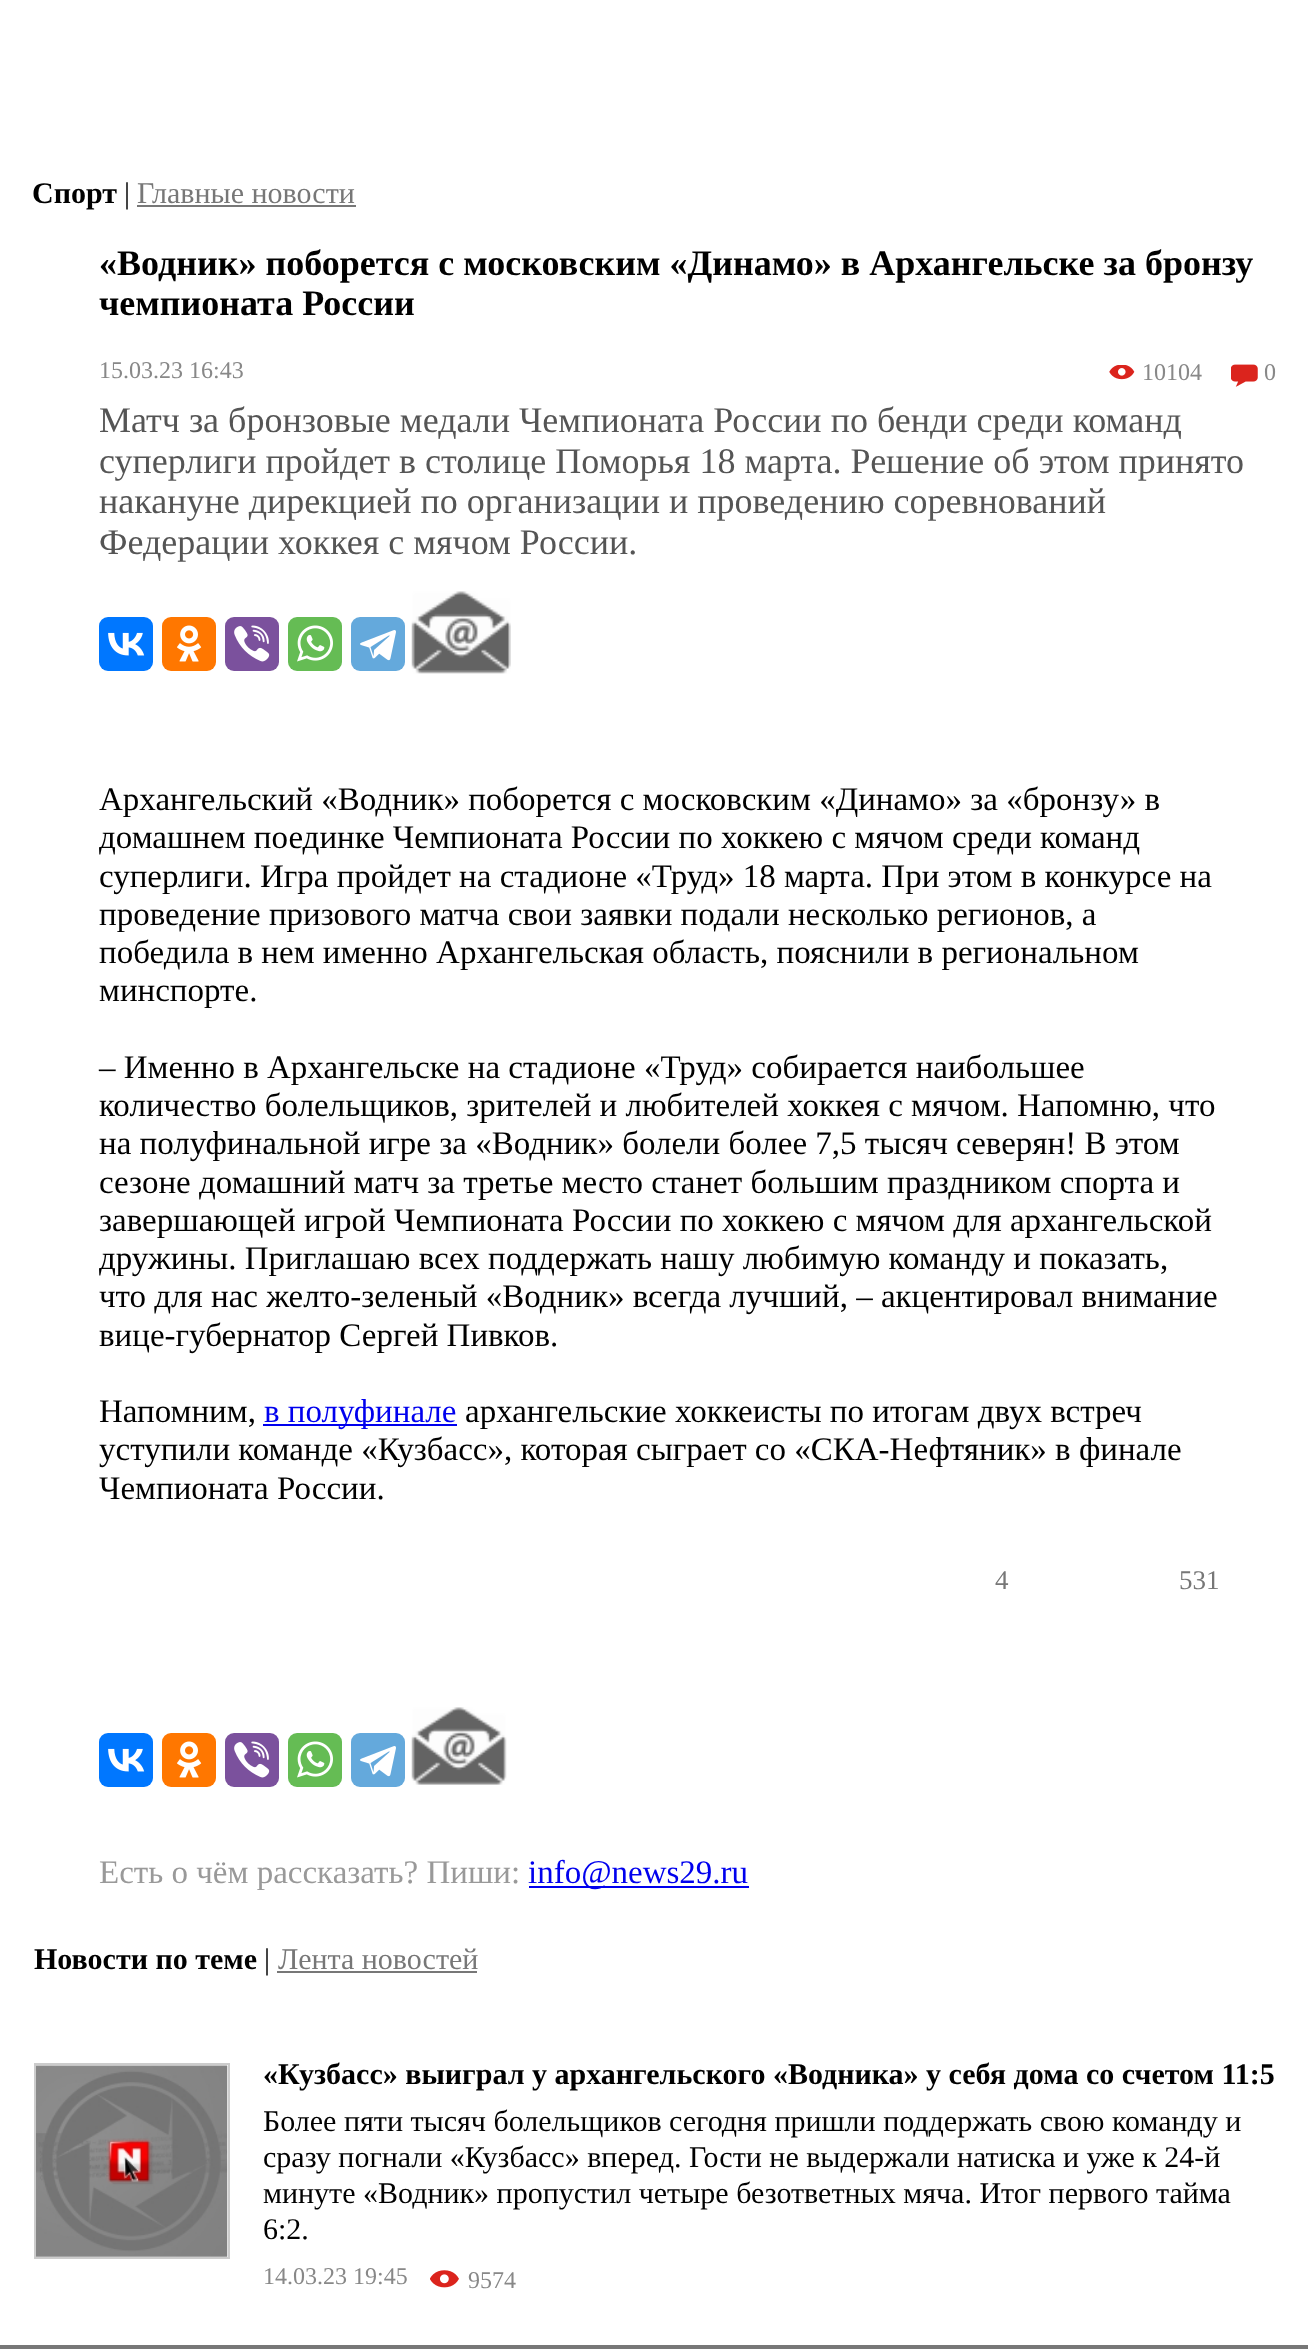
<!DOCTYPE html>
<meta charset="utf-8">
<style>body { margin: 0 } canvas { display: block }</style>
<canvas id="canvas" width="1308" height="2349"></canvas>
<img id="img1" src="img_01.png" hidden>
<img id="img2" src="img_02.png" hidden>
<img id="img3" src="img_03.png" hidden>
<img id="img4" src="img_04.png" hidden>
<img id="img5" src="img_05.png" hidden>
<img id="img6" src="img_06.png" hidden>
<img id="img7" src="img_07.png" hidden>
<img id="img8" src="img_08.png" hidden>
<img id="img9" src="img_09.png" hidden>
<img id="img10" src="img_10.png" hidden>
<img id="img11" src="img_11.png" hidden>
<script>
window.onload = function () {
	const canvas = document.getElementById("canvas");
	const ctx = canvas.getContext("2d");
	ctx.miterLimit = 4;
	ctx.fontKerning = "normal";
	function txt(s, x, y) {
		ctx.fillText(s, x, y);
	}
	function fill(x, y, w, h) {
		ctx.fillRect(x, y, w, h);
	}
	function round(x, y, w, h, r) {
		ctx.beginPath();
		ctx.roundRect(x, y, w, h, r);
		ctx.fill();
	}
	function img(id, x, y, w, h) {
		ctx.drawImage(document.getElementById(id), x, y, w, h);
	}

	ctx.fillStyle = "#FFFFFF";
	fill(0, 0, 1308, 2349);
	ctx.fillStyle = "#777777";
	fill(137, 205, 219, 2);
	img("img1", 1109, 365, 26, 15);
	img("img2", 1231, 364, 27, 23);
	ctx.fillStyle = "#0077FF";
	round(99, 617, 54, 54, 9);
	img("img3", 108, 632, 37, 24);
	ctx.fillStyle = "#FF7700";
	round(162, 617, 54, 54, 9);
	img("img4", 177, 625, 25, 37);
	ctx.fillStyle = "#7B519D";
	round(225, 617, 54, 54, 9);
	img("img5", 234, 625, 36, 37);
	ctx.fillStyle = "#65BC54";
	round(288, 617, 54, 54, 9);
	img("img6", 297, 625, 36, 37);
	ctx.fillStyle = "#64A9DC";
	round(351, 617, 54, 54, 9);
	img("img7", 360, 630, 36, 31);
	img("img8", 411, 591, 100, 83);
	ctx.fillStyle = "#0000EE";
	fill(263, 1424, 194, 2);
	ctx.fillStyle = "#0077FF";
	round(99, 1733, 54, 54, 9);
	img("img3", 108, 1748, 37, 24);
	ctx.fillStyle = "#FF7700";
	round(162, 1733, 54, 54, 9);
	img("img4", 177, 1741, 25, 37);
	ctx.fillStyle = "#7B519D";
	round(225, 1733, 54, 54, 9);
	img("img5", 234, 1741, 36, 37);
	ctx.fillStyle = "#65BC54";
	round(288, 1733, 54, 54, 9);
	img("img6", 297, 1741, 36, 37);
	ctx.fillStyle = "#64A9DC";
	round(351, 1733, 54, 54, 9);
	img("img7", 360, 1746, 36, 31);
	img("img9", 411, 1707, 96, 78);
	ctx.fillStyle = "#0000EE";
	fill(529, 1886, 220, 2);
	ctx.fillStyle = "#777777";
	fill(277, 1971, 200, 2);
	ctx.strokeStyle = "#CCCCCC";
	ctx.lineWidth = 2;
	ctx.strokeRect(35, 2064, 194, 194);
	img("img10", 36, 2065, 192, 192);
	img("img11", 430, 2270, 29, 18);
	fill(0, 2345, 1308, 4);
	ctx.font = "bold 30px Liberation Serif";
	ctx.fillStyle = "#000000";
	txt("Спорт", 32, 203);
	ctx.font = "30px Liberation Serif";
	txt("|", 124, 203);
	ctx.fillStyle = "#777777";
	txt("Главные новости", 137, 203);
	ctx.font = "bold 36px Liberation Serif";
	ctx.fillStyle = "#000000";
	txt("«Водник» поборется с московским «Динамо» в Архангельске за бронзу", 99, 275);
	txt("чемпионата России", 99, 315);
	ctx.font = "24px Liberation Serif";
	ctx.fillStyle = "#888888";
	txt("15.03.23 16:43", 99, 378);
	txt("10104", 1142, 380);
	txt("0", 1264, 380);
	ctx.font = "36px Liberation Serif";
	ctx.fillStyle = "#555555";
	txt("Матч за бронзовые медали Чемпионата России по бенди среди команд", 99, 432);
	txt("суперлиги пройдет в столице Поморья 18 марта. Решение об этом принято", 99, 473);
	txt("накануне дирекцией по организации и проведению соревнований", 99, 513);
	txt("Федерации хоккея с мячом России.", 99, 554);
	ctx.font = "33px Liberation Serif";
	ctx.fillStyle = "#000000";
	txt("Архангельский «Водник» поборется с московским «Динамо» за «бронзу» в", 99, 810);
	txt("домашнем поединке Чемпионата России по хоккею с мячом среди команд", 99, 848);
	txt("суперлиги. Игра пройдет на стадионе «Труд» 18 марта. При этом в конкурсе на", 99, 887);
	txt("проведение призового матча свои заявки подали несколько регионов, а", 99, 925);
	txt("победила в нем именно Архангельская область, пояснили в региональном", 99, 963);
	txt("минспорте.", 99, 1001);
	txt("– Именно в Архангельске на стадионе «Труд» собирается наибольшее", 99, 1078);
	txt("количество болельщиков, зрителей и любителей хоккея с мячом. Напомню, что", 99, 1116);
	txt("на полуфинальной игре за «Водник» болели более 7,5 тысяч северян! В этом", 99, 1154);
	txt("сезоне домашний матч за третье место станет большим праздником спорта и", 99, 1193);
	txt("завершающей игрой Чемпионата России по хоккею с мячом для архангельской", 99, 1231);
	txt("дружины. Приглашаю всех поддержать нашу любимую команду и показать,", 99, 1269);
	txt("что для нас желто-зеленый «Водник» всегда лучший, – акцентировал внимание", 99, 1307);
	txt("вице-губернатор Сергей Пивков.", 99, 1346);
	txt("Напомним,", 99, 1422);
	ctx.fillStyle = "#0000EE";
	txt("в полуфинале", 264, 1422);
	ctx.fillStyle = "#000000";
	txt("архангельские хоккеисты по итогам двух встреч", 465, 1422);
	txt("уступили команде «Кузбасс», которая сыграет со «СКА-Нефтяник» в финале", 99, 1460);
	txt("Чемпионата России.", 99, 1499);
	ctx.font = "27px Liberation Serif";
	ctx.fillStyle = "#777777";
	txt("4", 995, 1589);
	txt("531", 1179, 1589);
	ctx.font = "33px Liberation Serif";
	ctx.fillStyle = "#999999";
	txt("Есть о чём рассказать? Пиши:", 99, 1883);
	ctx.fillStyle = "#0000EE";
	txt("info@news29.ru", 528, 1883);
	ctx.font = "bold 30px Liberation Serif";
	ctx.fillStyle = "#000000";
	txt("Новости по теме", 34, 1969);
	ctx.font = "30px Liberation Serif";
	txt("|", 264, 1969);
	ctx.fillStyle = "#777777";
	txt("Лента новостей", 278, 1969);
	ctx.font = "bold 30px Liberation Serif";
	ctx.fillStyle = "#000000";
	txt("«Кузбасс» выиграл у архангельского «Водника» у себя дома со счетом 11:5", 263, 2084);
	ctx.font = "30px Liberation Serif";
	txt("Более пяти тысяч болельщиков сегодня пришли поддержать свою команду и", 263, 2131);
	txt("сразу погнали «Кузбасс» вперед. Гости не выдержали натиска и уже к 24-й", 263, 2167);
	txt("минуте «Водник» пропустил четыре безответных мяча. Итог первого тайма", 263, 2203);
	txt("6:2.", 263, 2239);
	ctx.font = "24px Liberation Serif";
	ctx.fillStyle = "#888888";
	txt("14.03.23 19:45", 263, 2284);
	txt("9574", 468, 2288);
};
</script>
